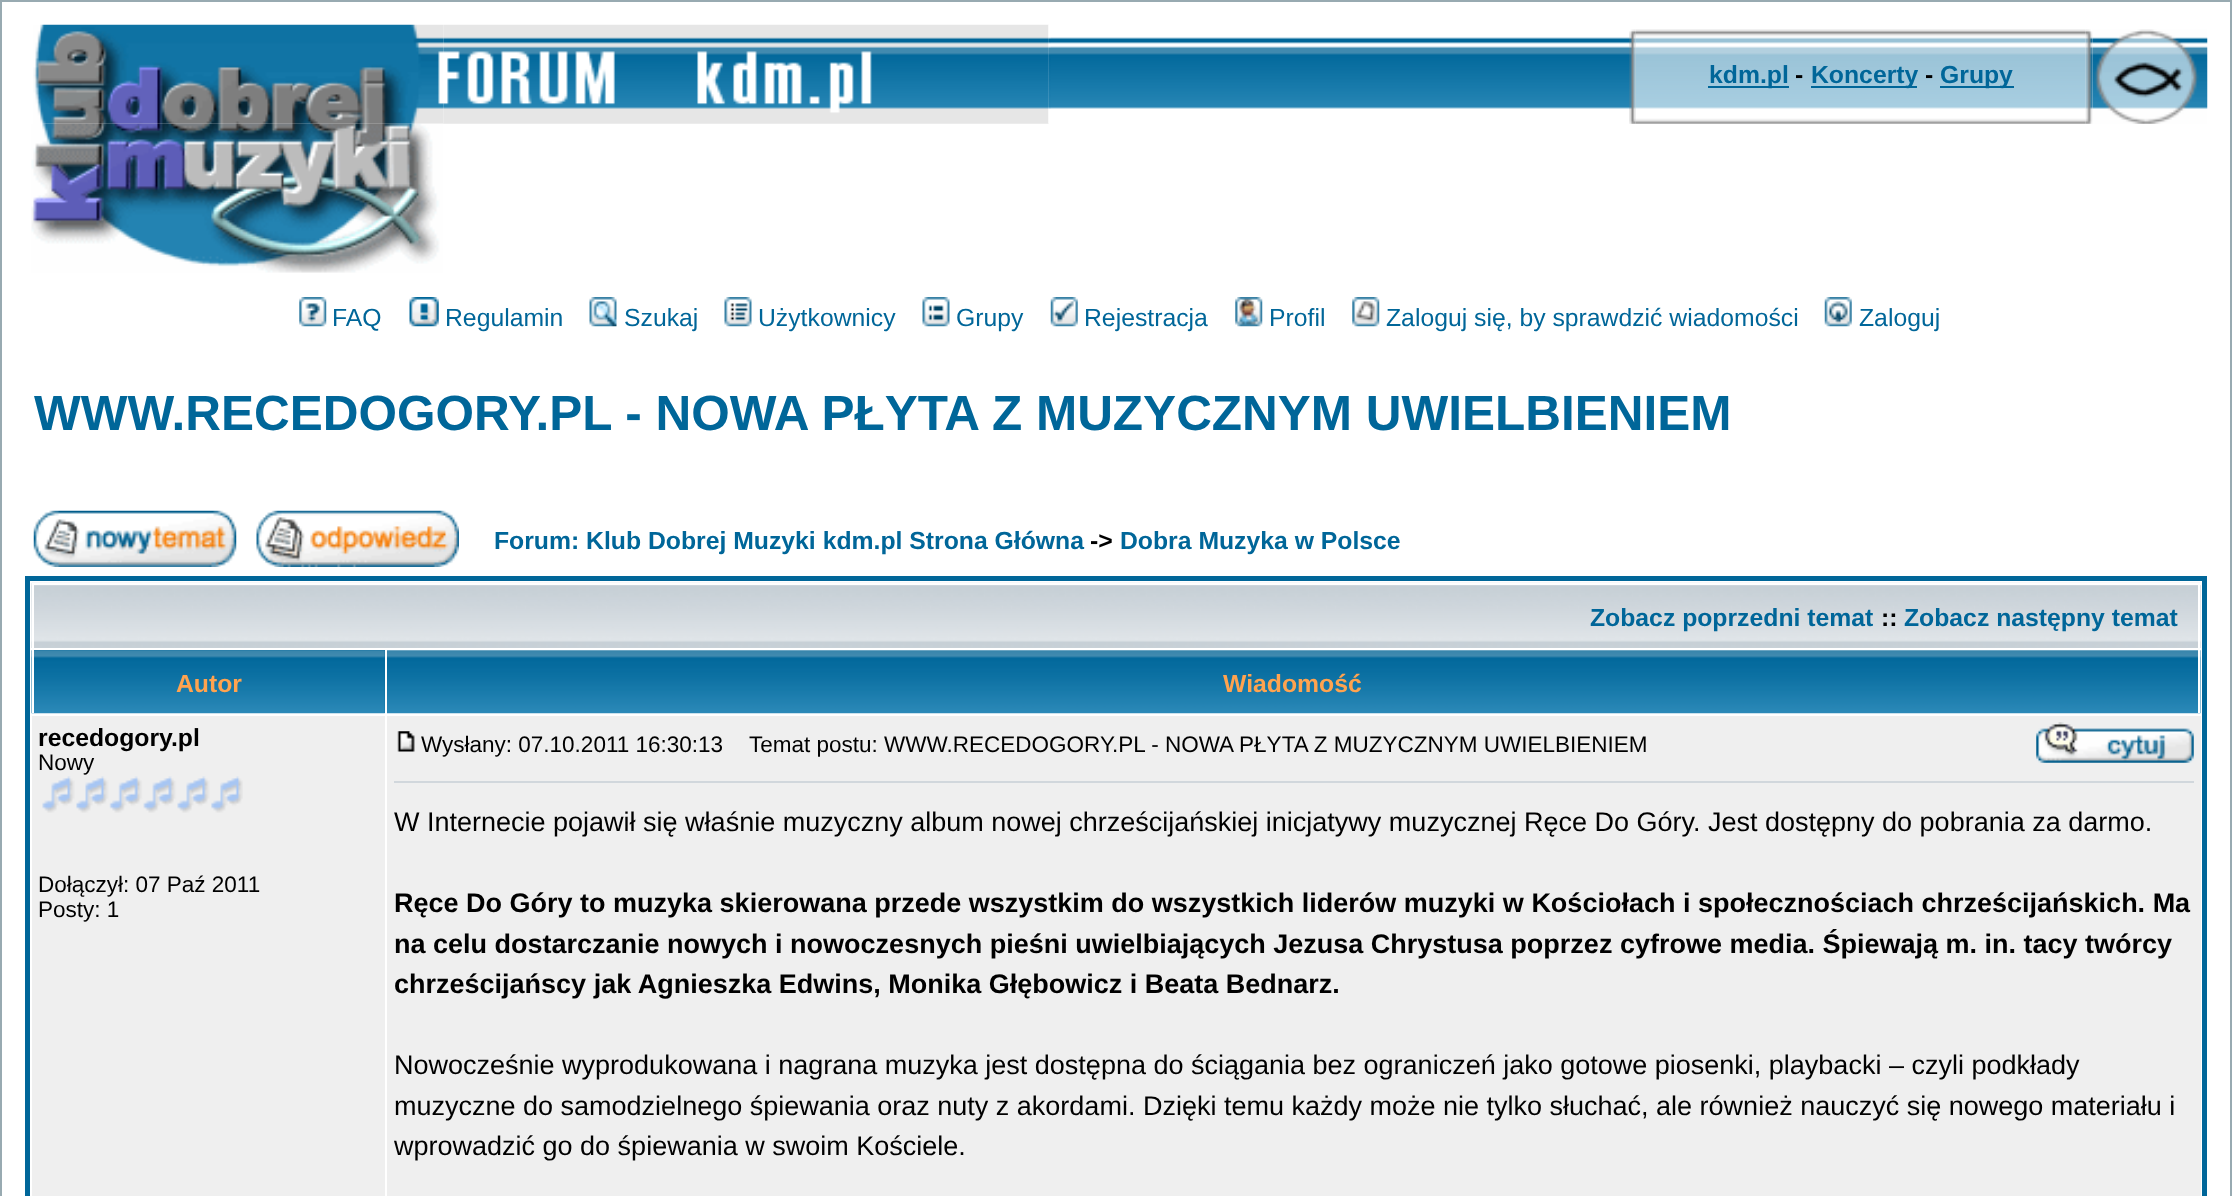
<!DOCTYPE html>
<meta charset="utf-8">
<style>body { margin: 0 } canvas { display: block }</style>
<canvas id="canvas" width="2232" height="1196"></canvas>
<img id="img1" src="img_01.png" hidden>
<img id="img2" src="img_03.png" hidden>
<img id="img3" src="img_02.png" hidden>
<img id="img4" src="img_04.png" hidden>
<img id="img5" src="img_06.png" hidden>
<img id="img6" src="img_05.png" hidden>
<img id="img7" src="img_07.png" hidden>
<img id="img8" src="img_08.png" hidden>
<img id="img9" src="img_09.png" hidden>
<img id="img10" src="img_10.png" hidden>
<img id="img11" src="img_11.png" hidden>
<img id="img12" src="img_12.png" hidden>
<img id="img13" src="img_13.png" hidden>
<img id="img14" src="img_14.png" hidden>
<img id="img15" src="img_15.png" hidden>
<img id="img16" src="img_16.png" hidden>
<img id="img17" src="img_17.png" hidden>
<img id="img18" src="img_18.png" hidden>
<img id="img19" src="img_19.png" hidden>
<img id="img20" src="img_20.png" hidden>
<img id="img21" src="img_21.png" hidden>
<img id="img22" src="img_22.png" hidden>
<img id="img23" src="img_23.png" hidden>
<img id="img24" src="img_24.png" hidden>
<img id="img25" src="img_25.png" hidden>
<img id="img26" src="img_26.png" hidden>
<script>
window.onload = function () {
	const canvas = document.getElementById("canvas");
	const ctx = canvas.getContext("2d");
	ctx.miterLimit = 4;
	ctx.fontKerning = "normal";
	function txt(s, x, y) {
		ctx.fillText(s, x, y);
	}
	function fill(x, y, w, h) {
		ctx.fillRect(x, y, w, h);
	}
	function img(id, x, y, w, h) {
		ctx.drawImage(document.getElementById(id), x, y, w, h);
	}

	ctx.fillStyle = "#FFFFFF";
	fill(0, 0, 2232, 1196);
	ctx.strokeStyle = "#98AAB1";
	ctx.lineWidth = 2;
	ctx.strokeRect(1, 1, 2230, 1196);
	img("img1", 33, 24, 411, 100);
	img("img2", 1048, 37, 581, 72);
	img("img3", 443, 24, 606, 100);
	img("img4", 1048, 25, 3, 98);
	img("img5", 1635, 29, 451, 95);
	img("img6", 1629, 29, 7, 95);
	ctx.fillStyle = "#006699";
	fill(1708, 86, 81, 2);
	fill(1811, 86, 106, 2);
	fill(1940, 86, 74, 2);
	img("img7", 2085, 29, 8, 95);
	img("img8", 2092, 29, 116, 95);
	img("img9", 31, 123, 412, 150);
	img("img10", 299, 297, 28, 30);
	img("img11", 409, 297, 30, 30);
	img("img12", 589, 297, 28, 30);
	img("img13", 724, 297, 28, 30);
	img("img14", 922, 297, 28, 30);
	img("img15", 1050, 297, 28, 30);
	img("img16", 1235, 297, 28, 30);
	img("img17", 1352, 297, 28, 30);
	img("img18", 1824, 297, 28, 30);
	img("img19", 33, 510, 204, 57);
	img("img20", 256, 510, 203, 57);
	ctx.strokeStyle = "#006699";
	ctx.lineWidth = 5;
	ctx.strokeRect(27.5, 578.5, 2177, 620);
	img("img21", 31, 582, 2170, 66);
	ctx.fillStyle = "#FFFFFF";
	fill(32, 583, 2169, 2);
	fill(2198, 583, 2, 65);
	fill(32, 583, 2, 65);
	ctx.fillStyle = "#006699";
	fill(34, 650, 351, 63);
	img("img22", 31, 650, 354, 64);
	ctx.fillStyle = "#FFFFFF";
	fill(32, 650, 2, 63);
	img("img23", 387, 650, 1814, 64);
	fill(2198, 650, 2, 63);
	ctx.fillStyle = "#EFEFEF";
	fill(32, 716, 353, 480);
	img("img24", 42, 776, 201, 37);
	fill(387, 716, 1814, 480);
	img("img25", 397, 731, 18, 21);
	img("img26", 2036, 722, 158, 41);
	ctx.fillStyle = "#D1D7DC";
	fill(394, 781, 1800, 2);
	ctx.font = "bold 24.75px Liberation Sans";
	ctx.fillStyle = "#006699";
	txt("kdm.pl", 1709, 83);
	ctx.fillStyle = "#000000";
	txt("-", 1795, 83);
	ctx.fillStyle = "#006699";
	txt("Koncerty", 1811, 83);
	ctx.fillStyle = "#000000";
	txt("-", 1925, 83);
	ctx.fillStyle = "#006699";
	txt("Grupy", 1940, 83);
	ctx.font = "24.75px Liberation Sans";
	txt("FAQ", 332, 326);
	txt("Regulamin", 445, 326);
	txt("Szukaj", 624, 326);
	txt("Użytkownicy", 758, 326);
	txt("Grupy", 956, 326);
	txt("Rejestracja", 1084, 326);
	txt("Profil", 1269, 326);
	txt("Zaloguj się, by sprawdzić wiadomości", 1386, 326);
	txt("Zaloguj", 1859, 326);
	ctx.font = "bold 49.5px Liberation Sans";
	txt("WWW.RECEDOGORY.PL - NOWA PŁYTA Z MUZYCZNYM UWIELBIENIEM", 34, 430);
	ctx.font = "bold 24.75px Liberation Sans";
	txt("Forum: Klub Dobrej Muzyki kdm.pl Strona Główna", 494, 549);
	ctx.fillStyle = "#000000";
	txt("->", 1090, 549);
	ctx.fillStyle = "#006699";
	txt("Dobra Muzyka w Polsce", 1120, 549);
	txt("Zobacz poprzedni temat", 1590, 626);
	ctx.fillStyle = "#000000";
	txt("::", 1881, 626);
	ctx.fillStyle = "#006699";
	txt("Zobacz następny temat", 1904, 626);
	ctx.fillStyle = "#FFA34F";
	txt("Autor", 176, 692);
	txt("Wiadomość", 1223, 692);
	ctx.fillStyle = "#000000";
	txt("recedogory.pl", 38, 746);
	ctx.font = "22.5px Liberation Sans";
	txt("Nowy", 38, 770);
	txt("Dołączył: 07 Paź 2011", 38, 892);
	txt("Posty: 1", 38, 917);
	txt("Wysłany: 07.10.2011 16:30:13", 421, 752);
	txt("Temat postu: WWW.RECEDOGORY.PL - NOWA PŁYTA Z MUZYCZNYM UWIELBIENIEM", 749, 752);
	ctx.font = "27px Liberation Sans";
	txt("W Internecie pojawił się właśnie muzyczny album nowej chrześcijańskiej inicjatywy muzycznej Ręce Do Góry. Jest dostępny do pobrania za darmo.", 394, 831);
	ctx.font = "bold 27px Liberation Sans";
	txt("Ręce Do Góry to muzyka skierowana przede wszystkim do wszystkich liderów muzyki w Kościołach i społecznościach chrześcijańskich. Ma", 394, 912);
	txt("na celu dostarczanie nowych i nowoczesnych pieśni uwielbiających Jezusa Chrystusa poprzez cyfrowe media. Śpiewają m. in. tacy twórcy", 394, 953);
	txt("chrześcijańscy jak Agnieszka Edwins, Monika Głębowicz i Beata Bednarz.", 394, 993);
	ctx.font = "27px Liberation Sans";
	txt("Nowocześnie wyprodukowana i nagrana muzyka jest dostępna do ściągania bez ograniczeń jako gotowe piosenki, playbacki – czyli podkłady", 394, 1074);
	txt("muzyczne do samodzielnego śpiewania oraz nuty z akordami. Dzięki temu każdy może nie tylko słuchać, ale również nauczyć się nowego materiału i", 394, 1115);
	txt("wprowadzić go do śpiewania w swoim Kościele.", 394, 1155);
};
</script>
